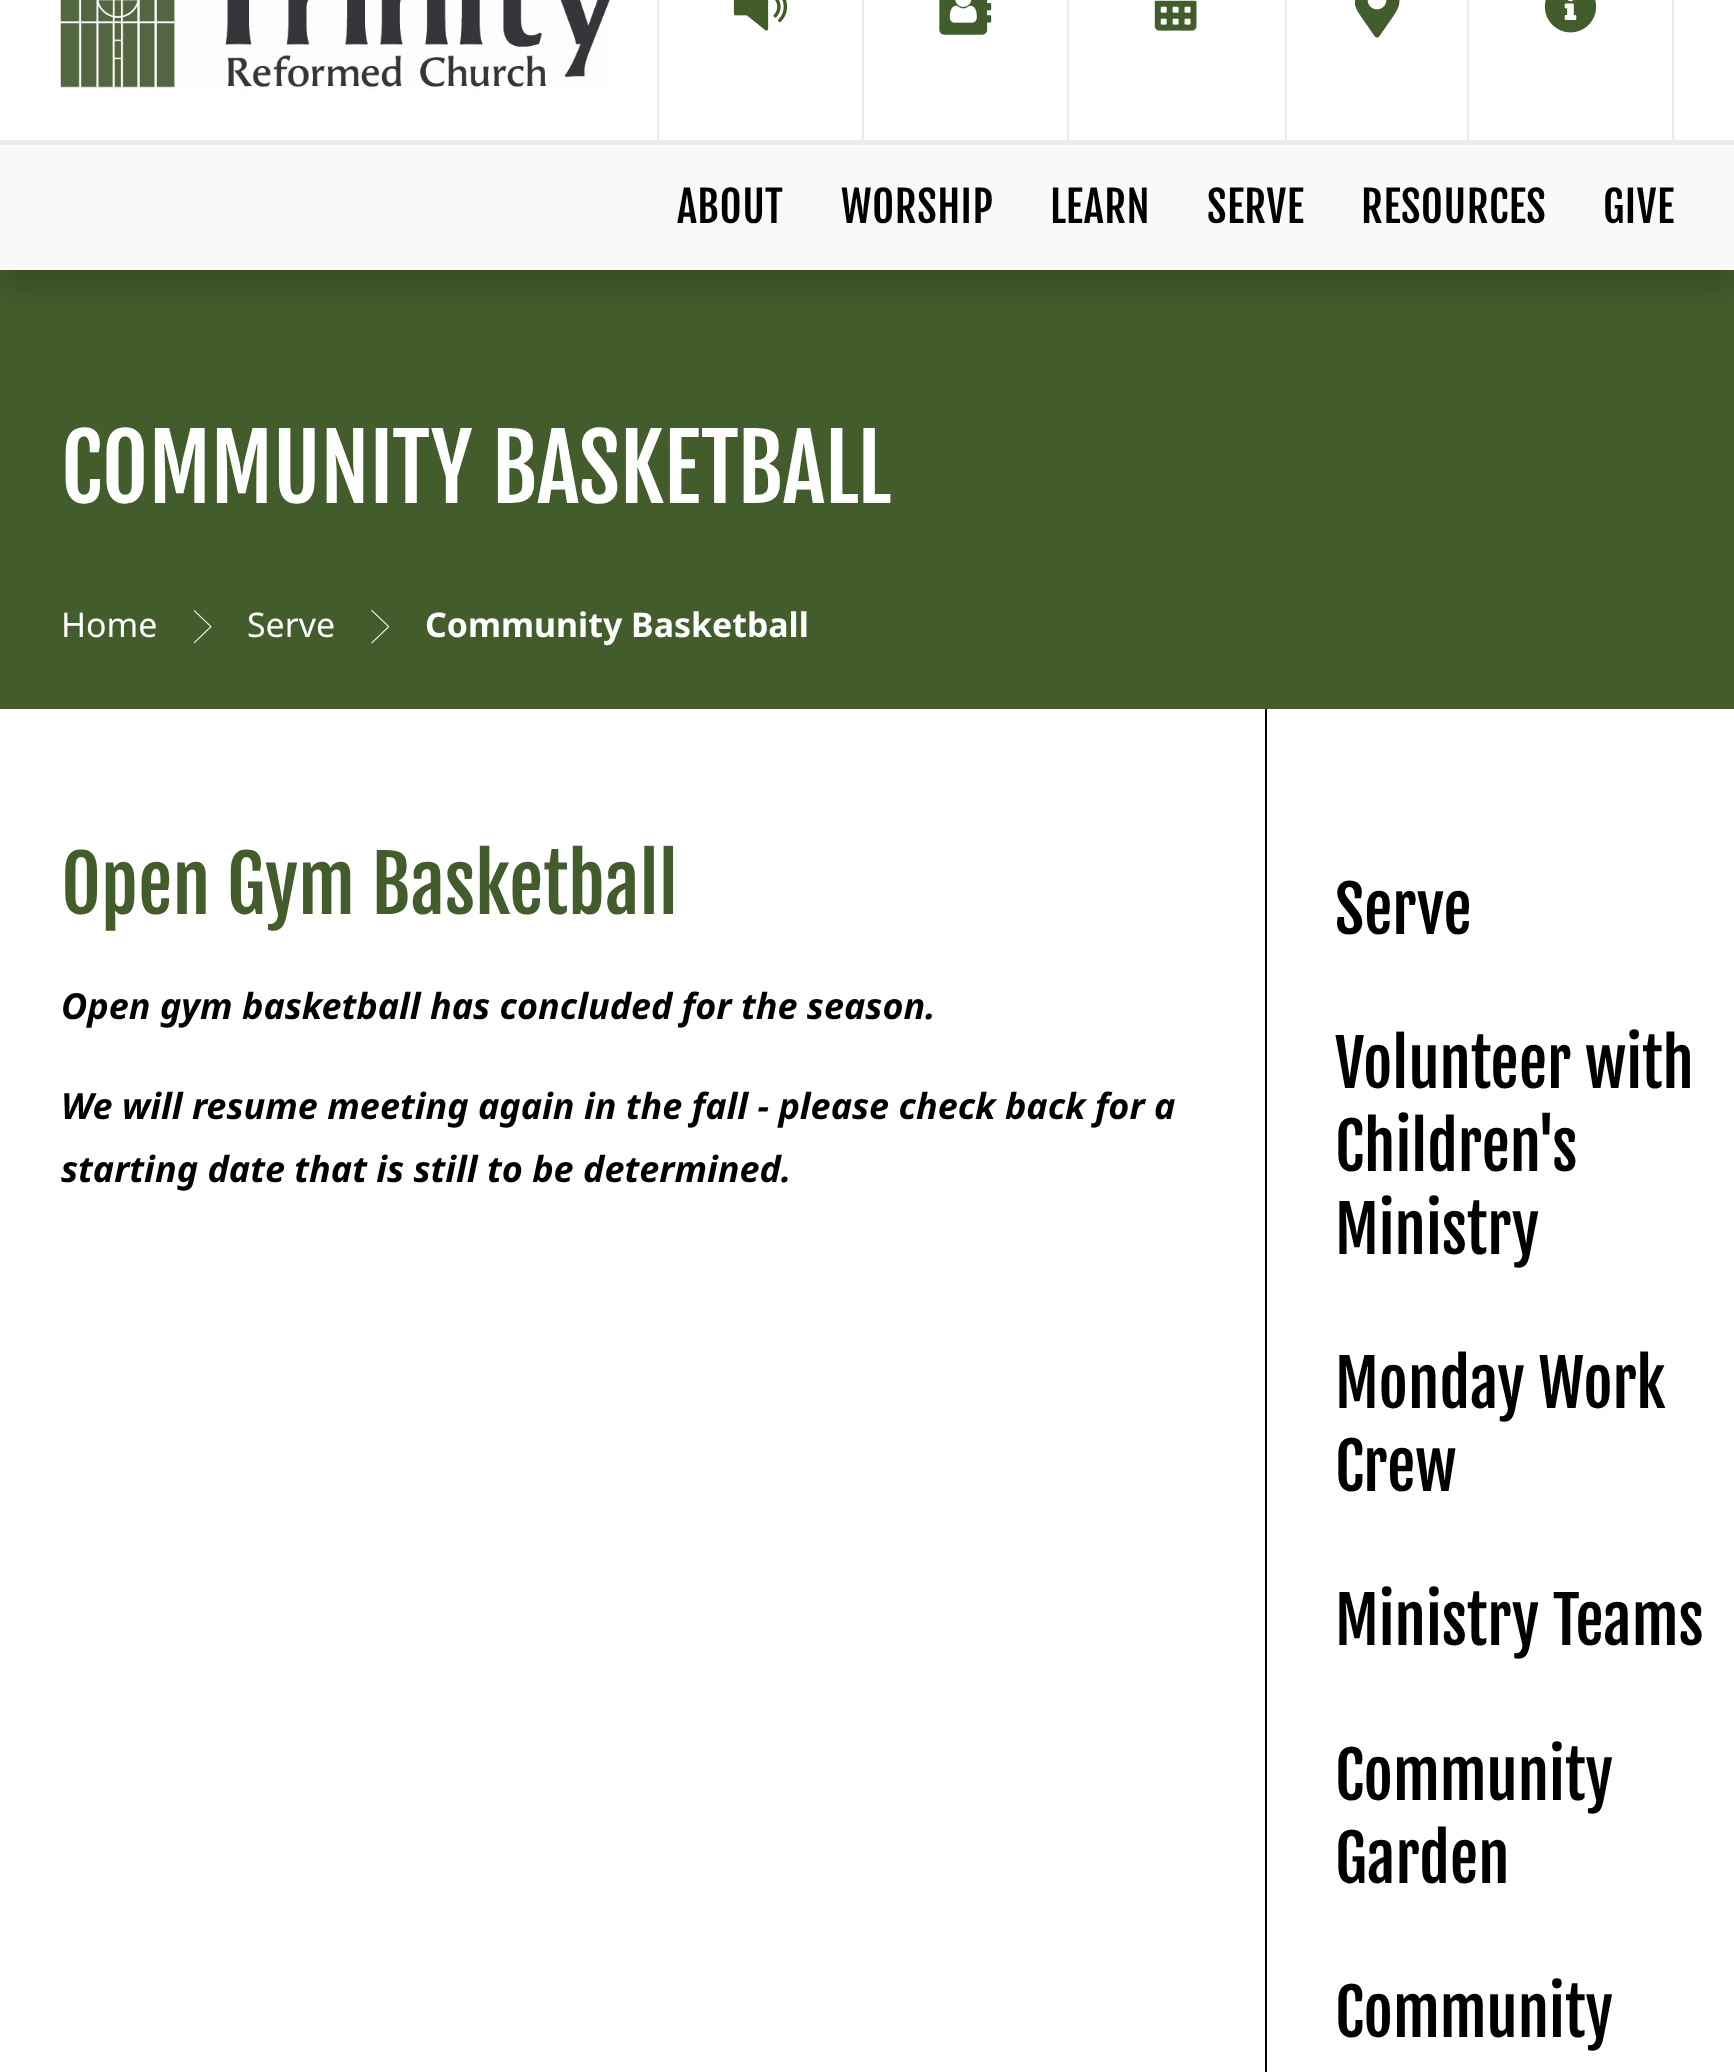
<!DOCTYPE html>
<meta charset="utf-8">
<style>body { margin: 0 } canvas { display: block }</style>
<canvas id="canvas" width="1734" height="2072"></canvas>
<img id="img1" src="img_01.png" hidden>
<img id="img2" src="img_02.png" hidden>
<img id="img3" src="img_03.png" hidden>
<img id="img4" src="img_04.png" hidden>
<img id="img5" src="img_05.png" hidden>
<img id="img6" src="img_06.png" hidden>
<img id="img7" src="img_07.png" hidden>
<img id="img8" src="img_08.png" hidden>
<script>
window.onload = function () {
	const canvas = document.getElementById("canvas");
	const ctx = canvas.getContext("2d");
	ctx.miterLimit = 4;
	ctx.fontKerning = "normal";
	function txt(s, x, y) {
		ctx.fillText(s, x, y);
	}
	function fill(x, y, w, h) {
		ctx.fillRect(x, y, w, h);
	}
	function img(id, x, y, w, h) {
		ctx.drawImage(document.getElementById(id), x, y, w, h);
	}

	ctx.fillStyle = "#FFFFFF";
	fill(0, 0, 1734, 2072);
	ctx.fillStyle = "#435C2C";
	fill(0, 270, 1734, 439);
	ctx.save();
	ctx.beginPath();
	ctx.rect(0, 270, 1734, 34);
	ctx.clip();
	ctx.fillStyle = "rgba(0, 0, 0, 0.16)";
	ctx.filter = "blur(13.5px)";
	ctx.beginPath();
	ctx.rect(0, -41, 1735, 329);
	ctx.fill();
	ctx.filter = "none";
	ctx.restore();
	ctx.fillStyle = "#EBEBEB";
	fill(0, 140, 1734, 5);
	img("img1", 60, 0, 550, 92);
	fill(862, 0, 2, 140);
	fill(657, 0, 2, 140);
	img("img2", 733, 0, 55, 31);
	fill(1067, 0, 2, 140);
	img("img3", 939, 0, 53, 35);
	fill(1285, 0, 2, 140);
	img("img4", 1154, 0, 43, 31);
	fill(1467, 0, 2, 140);
	img("img5", 1355, 0, 45, 38);
	fill(1672, 0, 2, 140);
	img("img6", 1544, 0, 53, 33);
	ctx.fillStyle = "#F9F9F9";
	fill(0, 145, 1734, 125);
	img("img7", 194, 610, 18, 34);
	img("img8", 371, 610, 18, 34);
	ctx.fillStyle = "#000000";
	fill(1265, 709, 2, 1363);
	ctx.letterSpacing = "0.5px";
	ctx.font = "42.5px Fjalla One";
	txt("ABOUT", 677, 223);
	txt("WORSHIP", 841, 223);
	txt("LEARN", 1050, 223);
	txt("SERVE", 1207, 223);
	txt("RESOURCES", 1361, 223);
	txt("GIVE", 1603, 223);
	ctx.letterSpacing = "0px";
	ctx.font = "90px Fjalla One";
	ctx.fillStyle = "#FFFFFF";
	txt("COMMUNITY BASKETBALL", 61, 503);
	ctx.font = "33.9px Noto Sans";
	txt("Home", 61, 637);
	txt("Serve", 247, 637);
	ctx.font = "bold 33.9px Noto Sans";
	txt("Community Basketball", 425, 637);
	ctx.font = "76.75px Fjalla One";
	ctx.fillStyle = "#435C2C";
	txt("Open Gym Basketball", 61, 914);
	ctx.font = "italic bold 36px Noto Sans";
	ctx.fillStyle = "#000000";
	txt("Open gym basketball has concluded for the season.", 61, 1019);
	txt("We will resume meeting again in the fall - please check back for a", 61, 1119);
	txt("starting date that is still to be determined.", 61, 1182);
	ctx.font = "63.5px Fjalla One";
	txt("Serve", 1335, 934);
	txt("Volunteer with", 1335, 1088);
	txt("Children's", 1335, 1171);
	txt("Ministry", 1335, 1254);
	txt("Monday Work", 1335, 1408);
	txt("Crew", 1335, 1491);
	txt("Ministry Teams", 1335, 1645);
	txt("Community", 1335, 1800);
	txt("Garden", 1335, 1883);
	txt("Community", 1335, 2037);
};
</script>
